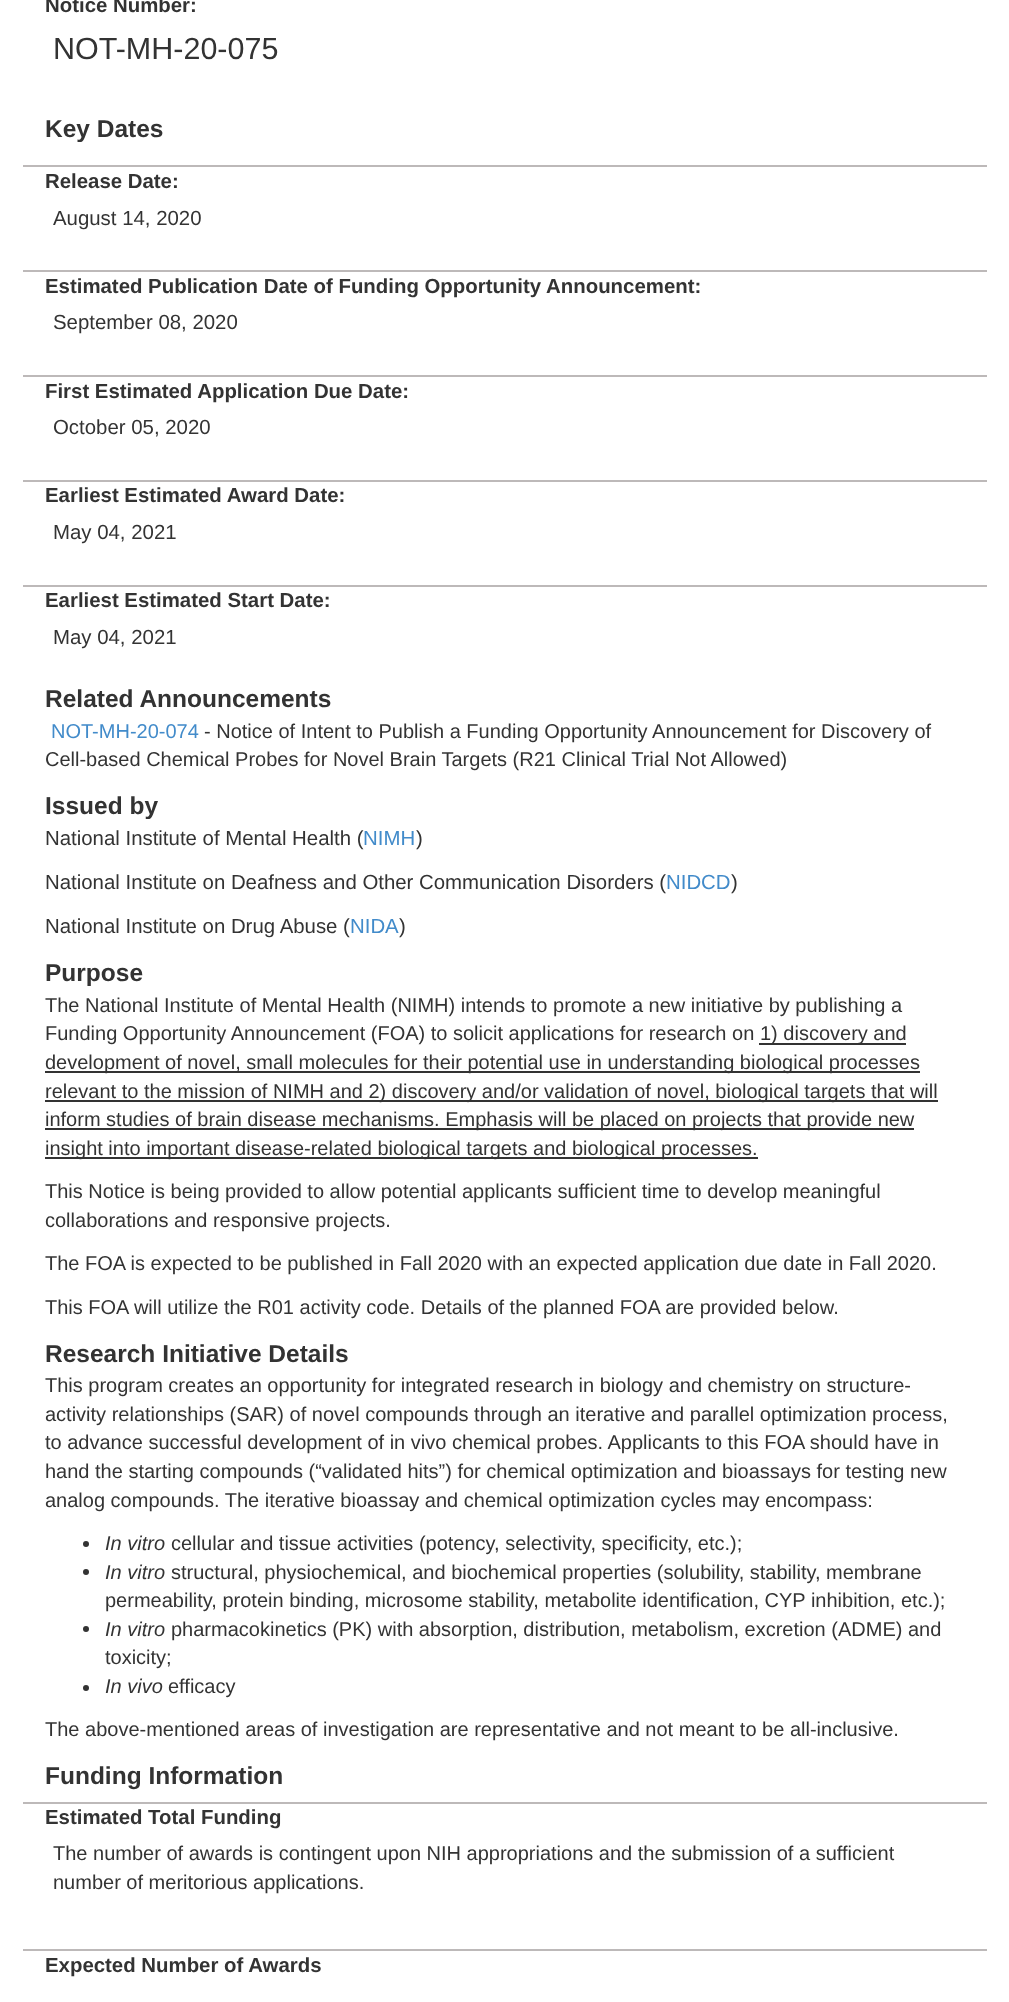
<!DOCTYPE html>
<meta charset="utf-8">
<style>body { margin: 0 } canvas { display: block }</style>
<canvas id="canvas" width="1009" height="2002"></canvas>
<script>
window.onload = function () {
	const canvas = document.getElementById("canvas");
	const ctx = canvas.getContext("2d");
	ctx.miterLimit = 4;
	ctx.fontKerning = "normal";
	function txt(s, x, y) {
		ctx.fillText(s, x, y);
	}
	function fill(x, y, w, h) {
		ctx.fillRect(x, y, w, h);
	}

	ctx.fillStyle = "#FFFFFF";
	fill(0, 0, 1009, 2002);
	ctx.fillStyle = "#BDB9B9";
	fill(23, 165, 964, 2);
	fill(23, 270, 964, 2);
	fill(23, 375, 964, 2);
	fill(23, 480, 964, 2);
	fill(23, 585, 964, 2);
	ctx.fillStyle = "#333333";
	fill(759, 1043, 147, 2);
	fill(45, 1071, 875, 2);
	fill(45, 1100, 893, 2);
	fill(45, 1128, 869, 2);
	fill(45, 1157, 713, 2);
	ctx.beginPath();
	ctx.arc(86, 1544, 3, 0, Math.PI * 2);
	ctx.fill();
	ctx.beginPath();
	ctx.arc(86, 1572, 3, 0, Math.PI * 2);
	ctx.fill();
	ctx.beginPath();
	ctx.arc(86, 1629, 3, 0, Math.PI * 2);
	ctx.fill();
	ctx.beginPath();
	ctx.arc(86, 1688, 3, 0, Math.PI * 2);
	ctx.fill();
	ctx.fillStyle = "#BDB9B9";
	fill(23, 1802, 964, 2);
	fill(23, 1949, 964, 2);
	ctx.font = "bold 20.4px Liberation Sans";
	ctx.fillStyle = "#333333";
	txt("Notice Number:", 45, 12);
	ctx.font = "30.5px Liberation Sans";
	txt("NOT-MH-20-075", 53, 59);
	ctx.font = "bold 24.5px Liberation Sans";
	txt("Key Dates", 45, 137);
	ctx.font = "bold 20.4px Liberation Sans";
	txt("Release Date:", 45, 188);
	ctx.font = "20.4px Liberation Sans";
	txt("August 14, 2020", 53, 225);
	ctx.font = "bold 20.4px Liberation Sans";
	txt("Estimated Publication Date of Funding Opportunity Announcement:", 45, 293);
	ctx.font = "20.4px Liberation Sans";
	txt("September 08, 2020", 53, 329);
	ctx.font = "bold 20.4px Liberation Sans";
	txt("First Estimated Application Due Date:", 45, 398);
	ctx.font = "20.4px Liberation Sans";
	txt("October 05, 2020", 53, 434);
	ctx.font = "bold 20.4px Liberation Sans";
	txt("Earliest Estimated Award Date:", 45, 502);
	ctx.font = "20.4px Liberation Sans";
	txt("May 04, 2021", 53, 539);
	ctx.font = "bold 20.4px Liberation Sans";
	txt("Earliest Estimated Start Date:", 45, 607);
	ctx.font = "20.4px Liberation Sans";
	txt("May 04, 2021", 53, 644);
	ctx.font = "bold 24.5px Liberation Sans";
	txt("Related Announcements", 45, 707);
	ctx.font = "20px Liberation Sans";
	ctx.fillStyle = "#428BCA";
	txt("NOT-MH-20-074", 51, 738);
	ctx.fillStyle = "#333333";
	txt("- Notice of Intent to Publish a Funding Opportunity Announcement for Discovery of", 204, 738);
	txt("Cell-based Chemical Probes for Novel Brain Targets (R21 Clinical Trial Not Allowed)", 45, 766);
	ctx.font = "bold 24.5px Liberation Sans";
	txt("Issued by", 45, 814);
	ctx.font = "20.4px Liberation Sans";
	txt("National Institute of Mental Health (", 45, 845);
	ctx.fillStyle = "#428BCA";
	txt("NIMH", 363, 845);
	ctx.fillStyle = "#333333";
	txt(")", 416, 845);
	txt("National Institute on Deafness and Other Communication Disorders (", 45, 889);
	ctx.fillStyle = "#428BCA";
	txt("NIDCD", 666, 889);
	ctx.fillStyle = "#333333";
	txt(")", 731, 889);
	txt("National Institute on Drug Abuse (", 45, 933);
	ctx.fillStyle = "#428BCA";
	txt("NIDA", 350, 933);
	ctx.fillStyle = "#333333";
	txt(")", 399, 933);
	ctx.font = "bold 24.5px Liberation Sans";
	txt("Purpose", 45, 981);
	ctx.font = "20px Liberation Sans";
	txt("The National Institute of Mental Health (NIMH) intends to promote a new initiative by publishing a", 45, 1012);
	txt("Funding Opportunity Announcement (FOA) to solicit applications for research on", 45, 1040);
	txt("1) discovery and", 760, 1040);
	txt("development of novel, small molecules for their potential use in understanding biological processes", 45, 1069);
	txt("relevant to the mission of NIMH and 2) discovery and/or validation of novel, biological targets that will", 45, 1098);
	txt("inform studies of brain disease mechanisms. Emphasis will be placed on projects that provide new", 45, 1126);
	txt("insight into important disease-related biological targets and biological processes.", 45, 1155);
	txt("This Notice is being provided to allow potential applicants sufficient time to develop meaningful", 45, 1198);
	txt("collaborations and responsive projects.", 45, 1227);
	txt("The FOA is expected to be published in Fall 2020 with an expected application due date in Fall 2020.", 45, 1270);
	txt("This FOA will utilize the R01 activity code. Details of the planned FOA are provided below.", 45, 1314);
	ctx.font = "bold 24.5px Liberation Sans";
	txt("Research Initiative Details", 45, 1362);
	ctx.font = "20px Liberation Sans";
	txt("This program creates an opportunity for integrated research in biology and chemistry on structure-", 45, 1392);
	txt("activity relationships (SAR) of novel compounds through an iterative and parallel optimization process,", 45, 1421);
	txt("to advance successful development of in vivo chemical probes. Applicants to this FOA should have in", 45, 1449);
	txt("hand the starting compounds (“validated hits”) for chemical optimization and bioassays for testing new", 45, 1478);
	txt("analog compounds. The iterative bioassay and chemical optimization cycles may encompass:", 45, 1507);
	ctx.font = "italic 20px Liberation Sans";
	txt("In vitro", 105, 1550);
	ctx.font = "20px Liberation Sans";
	txt("cellular and tissue activities (potency, selectivity, specificity, etc.);", 171, 1550);
	ctx.font = "italic 20px Liberation Sans";
	txt("In vitro", 105, 1579);
	ctx.font = "20px Liberation Sans";
	txt("structural, physiochemical, and biochemical properties (solubility, stability, membrane", 171, 1579);
	txt("permeability, protein binding, microsome stability, metabolite identification, CYP inhibition, etc.);", 105, 1607);
	ctx.font = "italic 20px Liberation Sans";
	txt("In vitro", 105, 1636);
	ctx.font = "20px Liberation Sans";
	txt("pharmacokinetics (PK) with absorption, distribution, metabolism, excretion (ADME) and", 171, 1636);
	txt("toxicity;", 105, 1664);
	ctx.font = "italic 20px Liberation Sans";
	txt("In vivo", 105, 1693);
	ctx.font = "20px Liberation Sans";
	txt("efficacy", 168, 1693);
	txt("The above-mentioned areas of investigation are representative and not meant to be all-inclusive.", 45, 1736);
	ctx.font = "bold 24.5px Liberation Sans";
	txt("Funding Information", 45, 1784);
	ctx.font = "bold 20.4px Liberation Sans";
	txt("Estimated Total Funding", 45, 1824);
	ctx.font = "20px Liberation Sans";
	txt("The number of awards is contingent upon NIH appropriations and the submission of a sufficient", 53, 1860);
	txt("number of meritorious applications.", 53, 1889);
	ctx.font = "bold 20.4px Liberation Sans";
	txt("Expected Number of Awards", 45, 1972);
};
</script>
